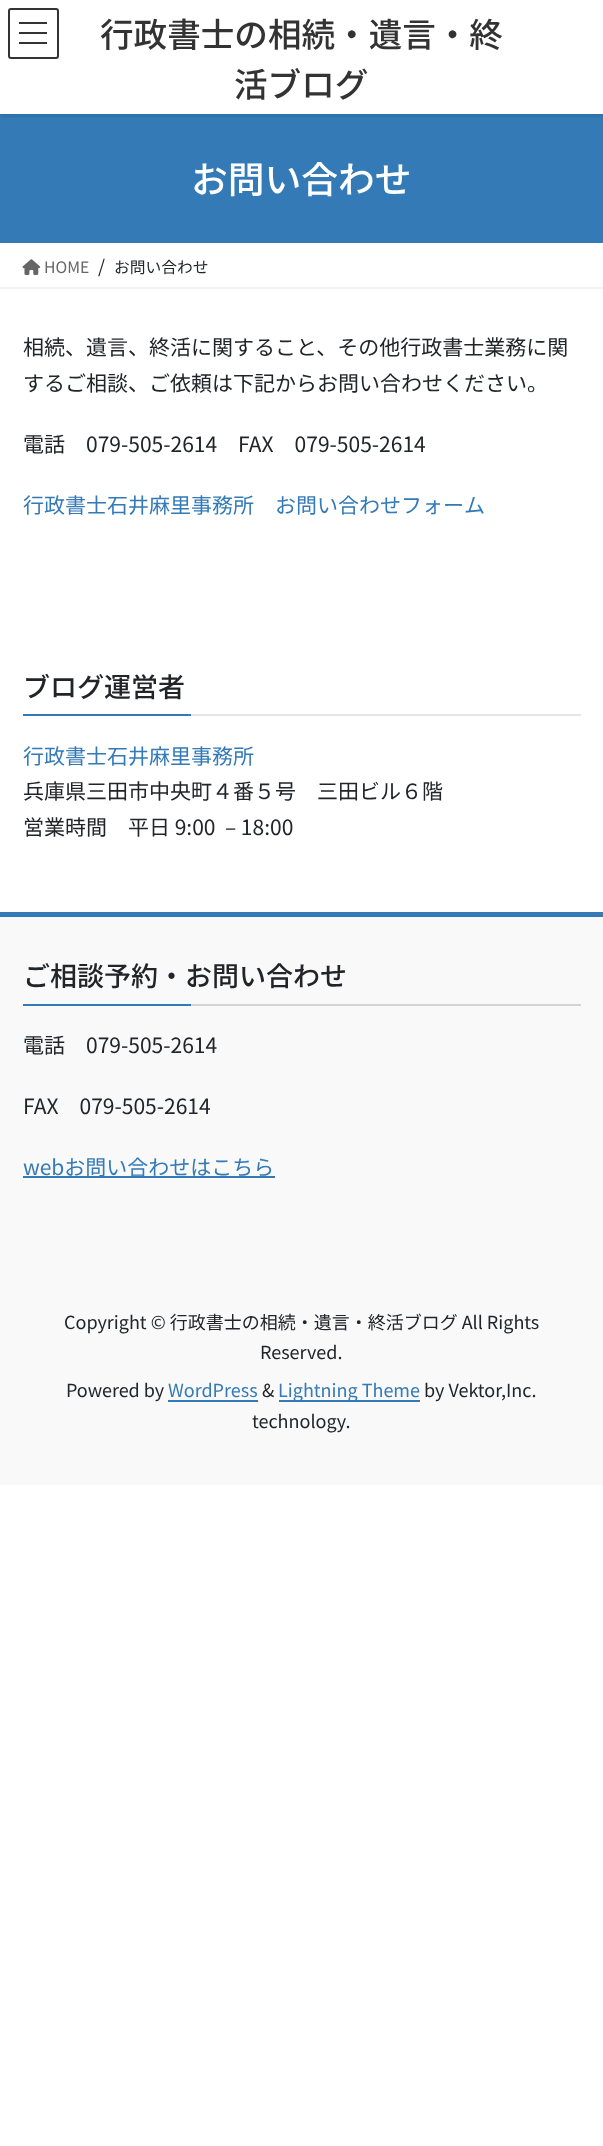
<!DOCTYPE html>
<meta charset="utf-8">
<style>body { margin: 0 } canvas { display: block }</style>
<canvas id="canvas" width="603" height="2146"></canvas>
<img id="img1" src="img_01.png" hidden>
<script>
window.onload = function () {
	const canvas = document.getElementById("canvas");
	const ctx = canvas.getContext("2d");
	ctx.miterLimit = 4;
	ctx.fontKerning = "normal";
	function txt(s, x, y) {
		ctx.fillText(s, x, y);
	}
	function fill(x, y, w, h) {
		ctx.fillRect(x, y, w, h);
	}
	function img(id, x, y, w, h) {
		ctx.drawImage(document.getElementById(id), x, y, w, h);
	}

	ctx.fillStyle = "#FFFFFF";
	fill(0, 0, 603, 2146);
	ctx.fillStyle = "#337AB7";
	fill(0, 114, 603, 129);
	ctx.save();
	ctx.beginPath();
	ctx.rect(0, 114, 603, 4);
	ctx.clip();
	ctx.fillStyle = "rgba(0, 0, 0, 0.1)";
	ctx.filter = "blur(2px)";
	ctx.beginPath();
	ctx.rect(0, 2, 603, 114);
	ctx.fill();
	ctx.filter = "none";
	ctx.restore();
	ctx.fillStyle = "#333333";
	fill(19, 22, 28, 2);
	fill(19, 32, 28, 2);
	fill(19, 42, 28, 2);
	ctx.beginPath();
	ctx.roundRect(9, 9, 49, 49, 2);
	ctx.strokeStyle = "#333333";
	ctx.lineWidth = 2;
	ctx.stroke();
	ctx.fillStyle = "#F2F2F2";
	fill(0, 287, 603, 2);
	img("img1", 22, 259, 19, 16);
	ctx.fillStyle = "#E6E6E6";
	fill(191, 714, 390, 2);
	ctx.fillStyle = "#337AB7";
	fill(23, 714, 168, 2);
	ctx.fillStyle = "#F9F9F9";
	fill(0, 917, 603, 568);
	ctx.fillStyle = "#337AB7";
	fill(0, 912, 603, 5);
	ctx.fillStyle = "#D4D4D4";
	fill(191, 1004, 390, 2);
	ctx.fillStyle = "#337AB7";
	fill(23, 1004, 168, 2);
	fill(23, 1176, 252, 2);
	fill(168, 1400, 90, 2);
	fill(279, 1400, 141, 2);
	ctx.font = "500 33.6px Noto Sans JP";
	ctx.fillStyle = "#333333";
	txt("行政書士の相続・遺言・終", 100, 47);
	txt("活ブログ", 234, 97);
	ctx.font = "500 36.75px Noto Sans JP";
	ctx.fillStyle = "#FFFFFF";
	txt("お問い合わせ", 191, 193);
	ctx.font = "15.75px Noto Sans JP";
	ctx.fillStyle = "#666666";
	txt("HOME", 44, 273);
	ctx.font = "18px Noto Sans JP";
	ctx.fillStyle = "#212529";
	txt("/", 98, 273);
	ctx.font = "15.75px Noto Sans JP";
	txt("お問い合わせ", 114, 273);
	ctx.font = "21px Noto Sans JP";
	txt("相続、遺言、終活に関すること、その他行政書士業務に関", 23, 355);
	txt("するご相談、ご依頼は下記からお問い合わせください。", 23, 391);
	txt("電話　079-505-2614　FAX　079-505-2614", 23, 452);
	ctx.fillStyle = "#337AB7";
	txt("行政書士石井麻里事務所　お問い合わせフォーム", 23, 513);
	ctx.font = "500 27px Noto Sans JP";
	ctx.fillStyle = "#212529";
	txt("ブログ運営者", 23, 697);
	ctx.font = "21px Noto Sans JP";
	ctx.fillStyle = "#337AB7";
	txt("行政書士石井麻里事務所", 23, 764);
	ctx.fillStyle = "#212529";
	txt("兵庫県三田市中央町４番５号　三田ビル６階", 23, 799);
	txt("営業時間　平日 9:00  – 18:00", 23, 835);
	ctx.font = "500 27px Noto Sans JP";
	txt("ご相談予約・お問い合わせ", 23, 986);
	ctx.font = "21px Noto Sans JP";
	txt("電話　079-505-2614", 23, 1053);
	txt("FAX　079-505-2614", 23, 1114);
	ctx.fillStyle = "#337AB7";
	txt("webお問い合わせはこちら", 23, 1175);
	ctx.font = "18px Noto Sans JP";
	ctx.fillStyle = "#212529";
	txt("Copyright © 行政書士の相続・遺言・終活ブログ All Rights", 64, 1329);
	txt("Reserved.", 260, 1359);
	txt("Powered by", 66, 1397);
	ctx.fillStyle = "#337AB7";
	txt("WordPress", 168, 1397);
	ctx.fillStyle = "#212529";
	txt("&", 262, 1397);
	ctx.fillStyle = "#337AB7";
	txt("Lightning Theme", 278, 1397);
	ctx.fillStyle = "#212529";
	txt("by Vektor,Inc.", 424, 1397);
	txt("technology.", 252, 1428);
};
</script>
